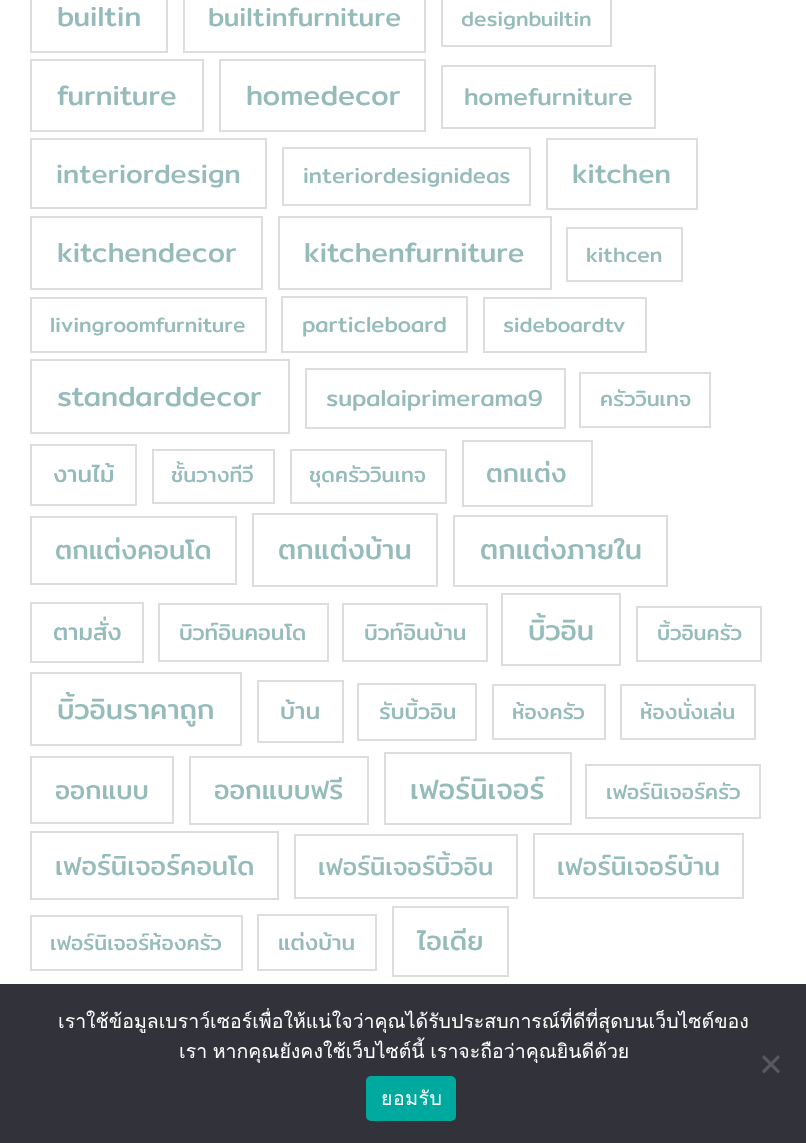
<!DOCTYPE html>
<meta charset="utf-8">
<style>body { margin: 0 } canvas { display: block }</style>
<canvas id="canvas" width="806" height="1143"></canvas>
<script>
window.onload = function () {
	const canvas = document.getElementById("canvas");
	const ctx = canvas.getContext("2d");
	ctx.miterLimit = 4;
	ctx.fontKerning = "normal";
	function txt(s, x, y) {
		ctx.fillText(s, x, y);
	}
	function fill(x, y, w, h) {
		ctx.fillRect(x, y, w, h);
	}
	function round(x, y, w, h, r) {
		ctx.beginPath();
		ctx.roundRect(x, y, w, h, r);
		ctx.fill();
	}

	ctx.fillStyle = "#FFFFFF";
	fill(0, 0, 806, 1143);
	ctx.strokeStyle = "#DDDDDD";
	ctx.lineWidth = 2;
	ctx.strokeRect(31, -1, 136, 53);
	ctx.strokeRect(184, -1, 241, 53);
	ctx.strokeRect(442, -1, 169, 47);
	ctx.strokeRect(31, 60, 172, 71);
	ctx.strokeRect(220, 60, 205, 71);
	ctx.strokeRect(442, 66, 213, 62);
	ctx.strokeRect(31, 139, 235, 69);
	ctx.strokeRect(283, 148, 247, 57);
	ctx.strokeRect(547, 139, 150, 70);
	ctx.strokeRect(31, 217, 231, 72);
	ctx.strokeRect(279, 217, 272, 72);
	ctx.strokeRect(567, 228, 115, 53);
	ctx.strokeRect(31, 298, 235, 54);
	ctx.strokeRect(282, 297, 185, 55);
	ctx.strokeRect(484, 298, 162, 54);
	ctx.strokeRect(31, 360, 258, 73);
	ctx.strokeRect(306, 369, 259, 59);
	ctx.strokeRect(580, 373, 130, 54);
	ctx.strokeRect(31, 445, 105, 60);
	ctx.strokeRect(153, 450, 121, 53);
	ctx.strokeRect(291, 450, 155, 53);
	ctx.strokeRect(463, 441, 129, 65);
	ctx.strokeRect(31, 517, 205, 67);
	ctx.strokeRect(253, 514, 184, 72);
	ctx.strokeRect(454, 516, 213, 70);
	ctx.strokeRect(31, 603, 112, 59);
	ctx.strokeRect(159, 604, 169, 57);
	ctx.strokeRect(343, 604, 144, 57);
	ctx.strokeRect(502, 594, 118, 71);
	ctx.strokeRect(637, 607, 124, 54);
	ctx.strokeRect(31, 673, 210, 72);
	ctx.strokeRect(258, 681, 85, 61);
	ctx.strokeRect(358, 684, 118, 56);
	ctx.strokeRect(493, 685, 112, 54);
	ctx.strokeRect(621, 685, 134, 54);
	ctx.strokeRect(31, 757, 142, 66);
	ctx.strokeRect(190, 757, 178, 67);
	ctx.strokeRect(385, 753, 186, 71);
	ctx.strokeRect(586, 765, 174, 53);
	ctx.strokeRect(31, 832, 247, 67);
	ctx.strokeRect(295, 835, 222, 63);
	ctx.strokeRect(534, 834, 209, 64);
	ctx.strokeRect(31, 916, 211, 54);
	ctx.strokeRect(258, 915, 118, 55);
	ctx.strokeRect(393, 907, 115, 69);
	ctx.fillStyle = "#32323A";
	fill(0, 984, 806, 159);
	ctx.fillStyle = "#59595D";
	ctx.beginPath();
	ctx.moveTo(778, 1055);
	ctx.lineTo(780, 1057.5);
	ctx.lineTo(764, 1073.5);
	ctx.lineTo(762, 1071);
	ctx.closePath();
	ctx.fill();
	ctx.beginPath();
	ctx.moveTo(762, 1057.5);
	ctx.lineTo(764, 1055);
	ctx.lineTo(780, 1071);
	ctx.lineTo(778, 1073.5);
	ctx.closePath();
	ctx.fill();
	ctx.fillStyle = "#00A99D";
	round(366, 1076, 90, 45, 5);
	ctx.font = "28px Mitr";
	ctx.fillStyle = "#96BBBB";
	txt("builtin", 57, 26);
	ctx.font = "26.5px Mitr";
	txt("builtinfurniture", 208, 26);
	ctx.font = "21px Mitr";
	txt("designbuiltin", 461, 26);
	ctx.font = "28px Mitr";
	txt("furniture", 57, 105);
	ctx.font = "28.5px Mitr";
	txt("homedecor", 246, 105);
	ctx.font = "24.5px Mitr";
	txt("homefurniture", 464, 105);
	ctx.font = "27px Mitr";
	txt("interiordesign", 56, 183);
	ctx.font = "22px Mitr";
	txt("interiordesignideas", 303, 183);
	ctx.font = "27.5px Mitr";
	txt("kitchen", 572, 183);
	ctx.font = "28px Mitr";
	txt("kitchendecor", 57, 262);
	txt("kitchenfurniture", 304, 262);
	ctx.font = "21px Mitr";
	txt("kithcen", 586, 262);
	txt("livingroomfurniture", 50, 332);
	ctx.font = "22px Mitr";
	txt("particleboard", 302, 332);
	ctx.font = "21px Mitr";
	txt("sideboardtv", 503, 332);
	ctx.font = "28.5px Mitr";
	txt("standarddecor", 57, 406);
	ctx.font = "23.5px Mitr";
	txt("supalaiprimerama9", 326, 406);
	ctx.font = "21px Mitr";
	txt("ครัววินเทจ", 600, 406);
	ctx.font = "23.5px Mitr";
	txt("งานไม้", 53, 482);
	ctx.font = "21px Mitr";
	txt("ชั้นวางทีวี", 171, 482);
	txt("ชุดครัววินเทจ", 309, 482);
	ctx.font = "26px Mitr";
	txt("ตกแต่ง", 486, 482);
	ctx.font = "26.5px Mitr";
	txt("ตกแต่งคอนโด", 55, 559);
	ctx.font = "28px Mitr";
	txt("ตกแต่งบ้าน", 278, 559);
	txt("ตกแต่งภายใน", 480, 559);
	ctx.font = "23.5px Mitr";
	txt("ตามสั่ง", 53, 640);
	ctx.font = "22px Mitr";
	txt("บิวท์อินคอนโด", 179, 640);
	txt("บิวท์อินบ้าน", 364, 640);
	ctx.font = "28px Mitr";
	txt("บิ้วอิน", 528, 640);
	ctx.font = "21px Mitr";
	txt("บิ้วอินครัว", 657, 640);
	ctx.font = "28px Mitr";
	txt("บิ้วอินราคาถูก", 57, 719);
	ctx.font = "24px Mitr";
	txt("บ้าน", 280, 719);
	ctx.font = "22px Mitr";
	txt("รับบิ้วอิน", 379, 719);
	ctx.font = "21px Mitr";
	txt("ห้องครัว", 512, 719);
	txt("ห้องนั่งเล่น", 640, 719);
	ctx.font = "26px Mitr";
	txt("ออกแบบ", 55, 799);
	ctx.font = "26.75px Mitr";
	txt("ออกแบบฟรี", 214, 799);
	ctx.font = "28.5px Mitr";
	txt("เฟอร์นิเจอร์", 410, 799);
	ctx.font = "21px Mitr";
	txt("เฟอร์นิเจอร์ครัว", 606, 799);
	ctx.font = "26.5px Mitr";
	txt("เฟอร์นิเจอร์คอนโด", 55, 875);
	ctx.font = "24.75px Mitr";
	txt("เฟอร์นิเจอร์บิ้วอิน", 318, 875);
	ctx.font = "25.5px Mitr";
	txt("เฟอร์นิเจอร์บ้าน", 557, 875);
	ctx.font = "21px Mitr";
	txt("เฟอร์นิเจอร์ห้องครัว", 50, 950);
	ctx.font = "22px Mitr";
	txt("แต่งบ้าน", 278, 950);
	ctx.font = "26.75px Mitr";
	txt("ไอเดีย", 417, 950);
	ctx.font = "19.5px Loma";
	ctx.fillStyle = "#FFFFFF";
	txt("เราใช้ข้อมูลเบราว์เซอร์เพื่อให้แน่ใจว่าคุณได้รับประสบการณ์ที่ดีที่สุดบนเว็บไซต์ของ", 58, 1028);
	ctx.wordSpacing = "-1px";
	txt("เรา หากคุณยังคงใช้เว็บไซต์นี้ เราจะถือว่าคุณยินดีด้วย", 179, 1058);
	ctx.letterSpacing = "0.5px";
	ctx.wordSpacing = "0px";
	txt("ยอมรับ", 381, 1105);
};
</script>
